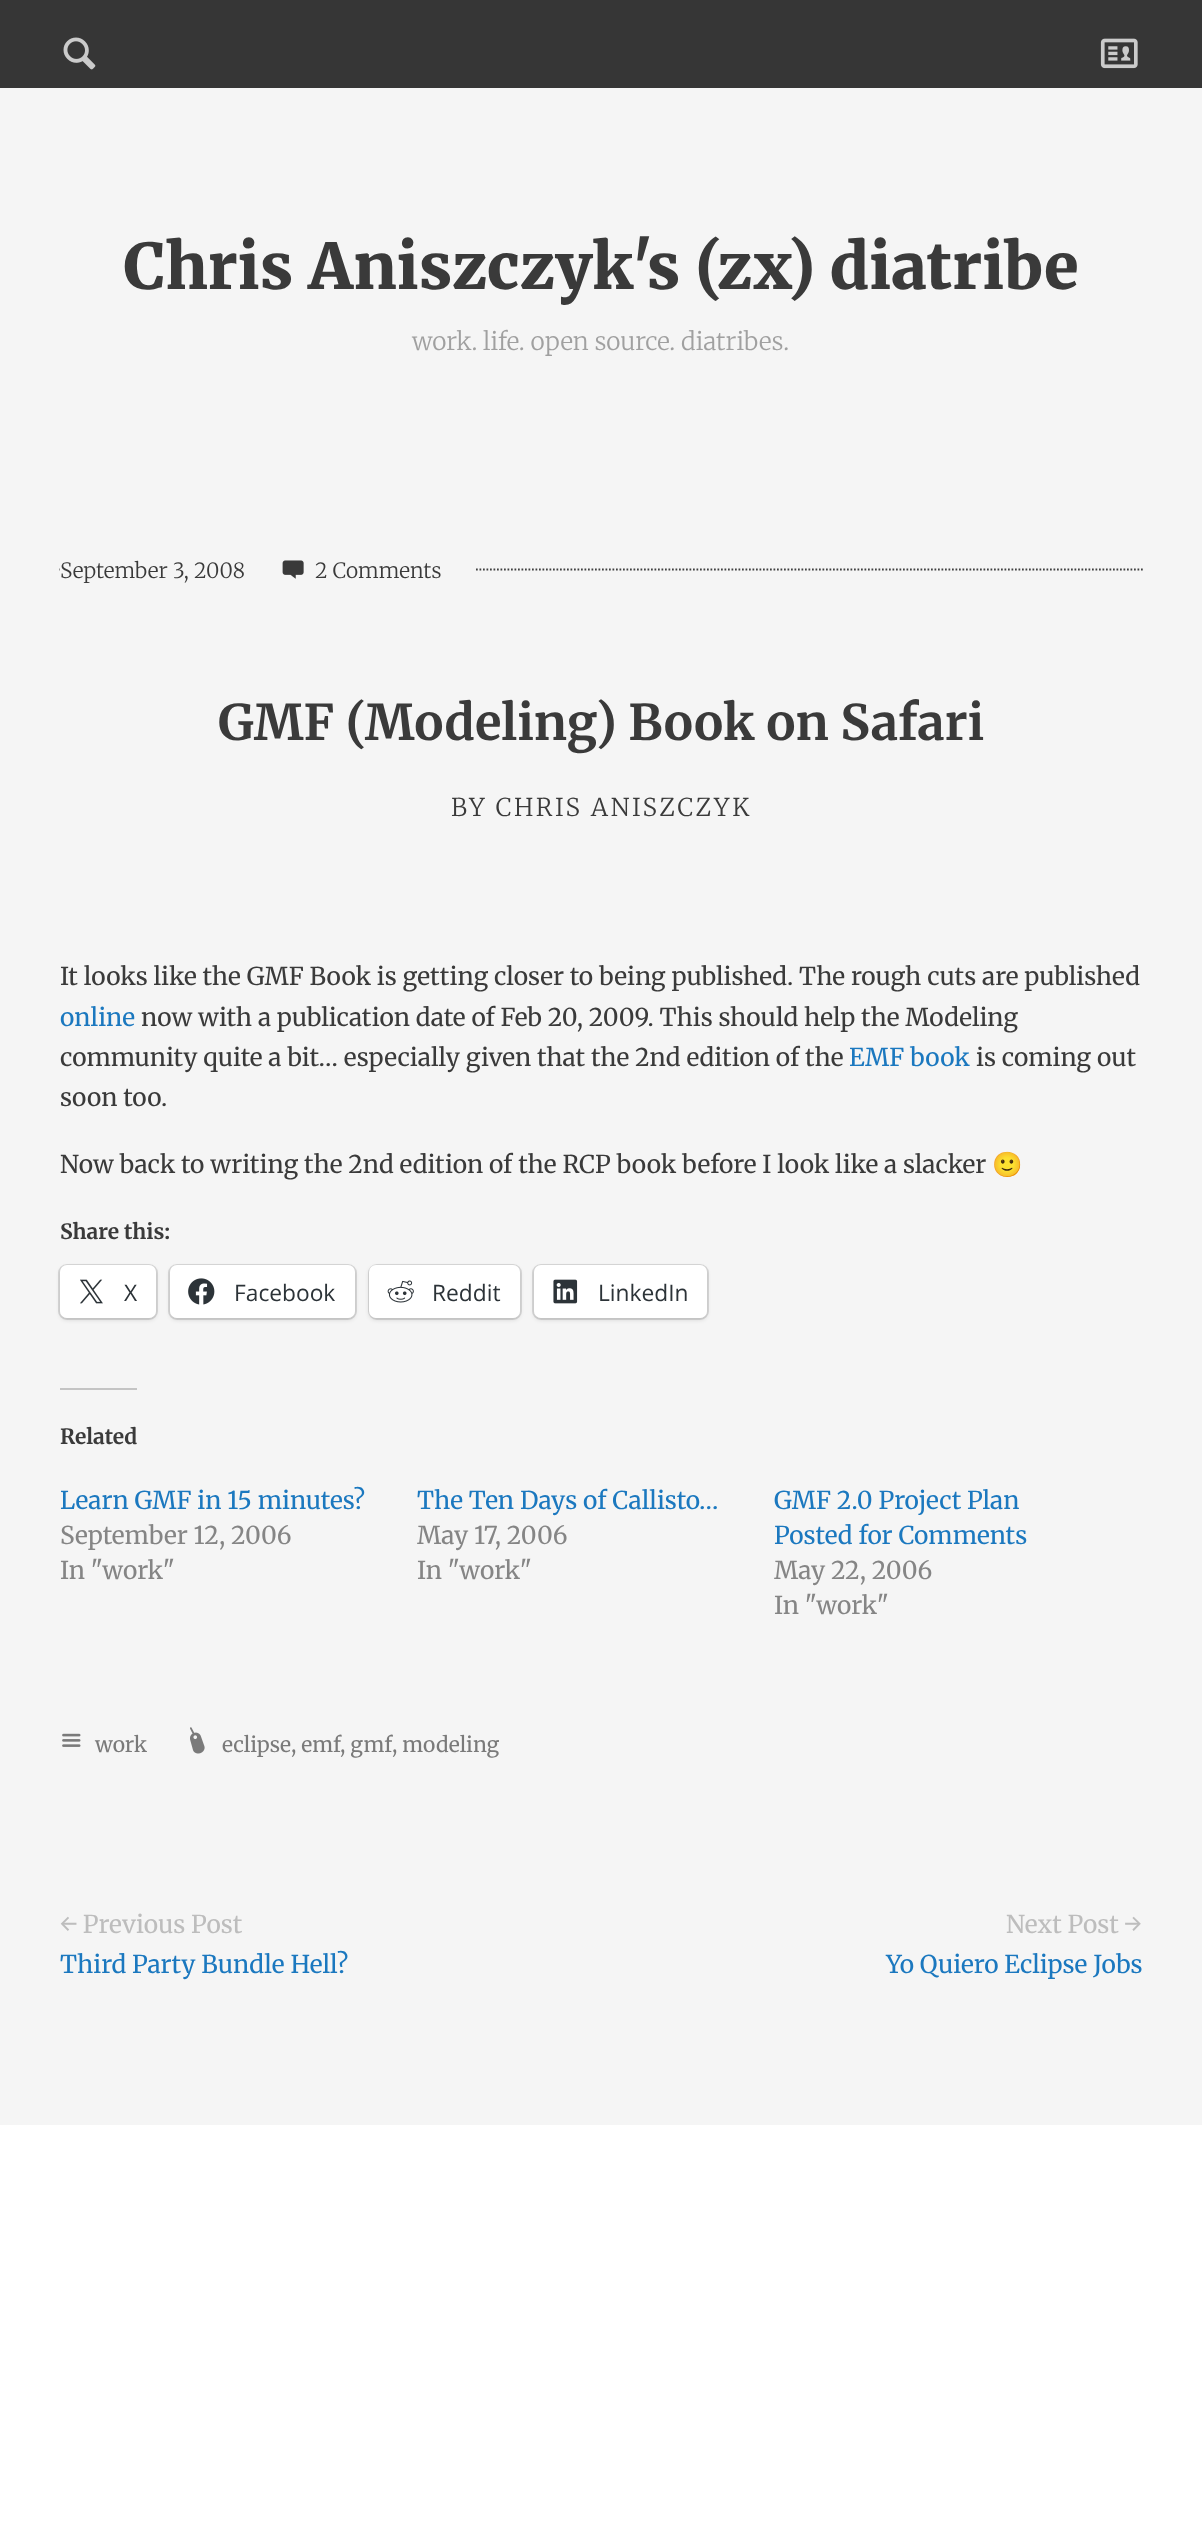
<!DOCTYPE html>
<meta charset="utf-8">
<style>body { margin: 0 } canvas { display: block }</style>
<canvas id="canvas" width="1202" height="2536"></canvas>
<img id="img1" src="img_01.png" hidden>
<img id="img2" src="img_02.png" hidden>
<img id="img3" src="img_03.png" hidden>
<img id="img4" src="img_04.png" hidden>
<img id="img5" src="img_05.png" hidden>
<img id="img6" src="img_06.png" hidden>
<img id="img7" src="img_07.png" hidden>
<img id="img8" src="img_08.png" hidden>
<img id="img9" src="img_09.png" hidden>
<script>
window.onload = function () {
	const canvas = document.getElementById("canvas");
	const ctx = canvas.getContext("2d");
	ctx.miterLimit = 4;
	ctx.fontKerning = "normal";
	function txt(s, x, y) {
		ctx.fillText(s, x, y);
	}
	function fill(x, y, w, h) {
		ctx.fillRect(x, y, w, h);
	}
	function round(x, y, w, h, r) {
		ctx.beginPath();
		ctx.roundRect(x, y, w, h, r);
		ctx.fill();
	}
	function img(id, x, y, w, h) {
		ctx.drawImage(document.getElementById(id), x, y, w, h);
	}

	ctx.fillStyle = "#F5F5F5";
	fill(0, 0, 1202, 2536);
	ctx.fillStyle = "#363636";
	fill(0, 0, 1202, 88);
	img("img1", 63, 37, 33, 33);
	img("img2", 1100, 38, 38, 31);
	ctx.beginPath();
	ctx.moveTo(59.5, 569.5);
	ctx.lineTo(1143, 569.5);
	ctx.strokeStyle = "#404040";
	ctx.lineWidth = 1.8;
	ctx.setLineDash([1.75, 1.75]);
	ctx.stroke();
	ctx.fillStyle = "#F5F5F5";
	fill(60, 568, 219, 3);
	fill(280, 568, 195, 3);
	img("img3", 282, 560, 22, 19);
	ctx.beginPath();
	ctx.roundRect(59, 1265, 98, 54, 8);
	ctx.strokeStyle = "#D8D8D8";
	ctx.lineWidth = 2;
	ctx.setLineDash([]);
	ctx.stroke();
	ctx.fillStyle = "rgba(0, 0, 0, 0.12)";
	ctx.filter = "blur(2px)";
	ctx.beginPath();
	ctx.roundRect(60, 1267, 96, 53, 7);
	ctx.fill();
	ctx.filter = "none";
	ctx.fillStyle = "#FFFFFF";
	round(60, 1265, 96, 53, 7);
	img("img4", 80, 1279, 23, 25);
	ctx.beginPath();
	ctx.roundRect(169, 1265, 187, 54, 8);
	ctx.stroke();
	ctx.fillStyle = "rgba(0, 0, 0, 0.12)";
	ctx.filter = "blur(2px)";
	ctx.beginPath();
	ctx.roundRect(170, 1267, 185, 53, 7);
	ctx.fill();
	ctx.filter = "none";
	ctx.fillStyle = "#FFFFFF";
	round(170, 1265, 185, 53, 7);
	img("img5", 188, 1278, 27, 27);
	ctx.beginPath();
	ctx.roundRect(369, 1265, 152, 54, 8);
	ctx.stroke();
	ctx.fillStyle = "rgba(0, 0, 0, 0.12)";
	ctx.filter = "blur(2px)";
	ctx.beginPath();
	ctx.roundRect(369, 1267, 151, 53, 7);
	ctx.fill();
	ctx.filter = "none";
	ctx.fillStyle = "#FFFFFF";
	round(369, 1265, 151, 53, 7);
	img("img6", 387, 1280, 27, 23);
	ctx.beginPath();
	ctx.roundRect(533, 1265, 175, 54, 8);
	ctx.stroke();
	ctx.fillStyle = "rgba(0, 0, 0, 0.12)";
	ctx.filter = "blur(2px)";
	ctx.beginPath();
	ctx.roundRect(534, 1267, 173, 53, 7);
	ctx.fill();
	ctx.filter = "none";
	ctx.fillStyle = "#FFFFFF";
	round(534, 1265, 173, 53, 7);
	img("img7", 553, 1279, 25, 25);
	ctx.fillStyle = "#C4C4C4";
	fill(60, 1388, 77, 2);
	img("img8", 62, 1733, 19, 14);
	img("img9", 190, 1727, 15, 27);
	ctx.fillStyle = "#FFFFFF";
	fill(0, 2125, 1202, 411);
	ctx.font = "900 63px Merriweather";
	ctx.fillStyle = "#3A3A3A";
	txt("Chris Aniszczyk's (zx) diatribe", 124, 289);
	ctx.font = "300 24.5px Merriweather";
	ctx.fillStyle = "#A0A0A0";
	txt("work. life. open source. diatribes.", 412, 350);
	ctx.font = "300 21px Merriweather";
	ctx.fillStyle = "#3A3A3A";
	txt("September 3, 2008", 60, 578);
	txt("2 Comments", 315, 578);
	ctx.font = "bold 49px Merriweather";
	txt("GMF (Modeling) Book on Safari", 218, 740);
	ctx.letterSpacing = "2.5px";
	ctx.font = "300 24.5px Merriweather";
	txt("BY CHRIS ANISZCZYK", 451, 816);
	ctx.letterSpacing = "0px";
	ctx.font = "24.5px Merriweather";
	txt("It looks like the GMF Book is getting closer to being published. The rough cuts are published", 60, 985);
	ctx.fillStyle = "#1B78BF";
	txt("online", 60, 1026);
	ctx.fillStyle = "#3A3A3A";
	txt("now with a publication date of Feb 20, 2009. This should help the Modeling", 141, 1026);
	txt("community quite a bit… especially given that the 2nd edition of the", 60, 1066);
	ctx.fillStyle = "#1B78BF";
	txt("EMF book", 849, 1066);
	ctx.fillStyle = "#3A3A3A";
	txt("is coming out", 976, 1066);
	txt("soon too.", 60, 1106);
	txt("Now back to writing the 2nd edition of the RCP book before I look like a slacker", 60, 1173);
	ctx.font = "24.5px Noto Color Emoji";
	txt("🙂", 992, 1173);
	ctx.font = "bold 21px Merriweather";
	txt("Share this:", 60, 1239);
	ctx.font = "22.75px Open Sans";
	ctx.fillStyle = "#2C3338";
	txt("X", 124, 1301);
	txt("Facebook", 234, 1301);
	txt("Reddit", 432, 1301);
	txt("LinkedIn", 598, 1301);
	ctx.font = "bold 21px Merriweather";
	ctx.fillStyle = "#3A3A3A";
	txt("Related", 60, 1444);
	ctx.font = "24.5px Merriweather";
	ctx.fillStyle = "#1B78BF";
	txt("Learn GMF in 15 minutes?", 60, 1509);
	ctx.fillStyle = "#858585";
	txt("September 12, 2006", 60, 1544);
	txt("In \"work\"", 60, 1579);
	ctx.fillStyle = "#1B78BF";
	txt("The Ten Days of Callisto…", 417, 1509);
	ctx.fillStyle = "#858585";
	txt("May 17, 2006", 417, 1544);
	txt("In \"work\"", 417, 1579);
	ctx.fillStyle = "#1B78BF";
	txt("GMF 2.0 Project Plan", 774, 1509);
	txt("Posted for Comments", 774, 1544);
	ctx.fillStyle = "#858585";
	txt("May 22, 2006", 774, 1579);
	txt("In \"work\"", 774, 1614);
	ctx.font = "21px Merriweather";
	ctx.fillStyle = "#7A7A7A";
	txt("work", 95, 1752);
	txt("eclipse", 222, 1752);
	txt(", emf", 291, 1752);
	txt(", gmf", 340, 1752);
	txt(", modeling", 392, 1752);
	ctx.font = "24.5px Merriweather";
	ctx.fillStyle = "#BDBDBD";
	txt("← Previous Post", 60, 1933);
	ctx.fillStyle = "#1B78BF";
	txt("Third Party Bundle Hell?", 60, 1973);
	ctx.fillStyle = "#BDBDBD";
	txt("Next Post →", 1006, 1933);
	ctx.fillStyle = "#1B78BF";
	txt("Yo Quiero Eclipse Jobs", 886, 1973);
};
</script>
